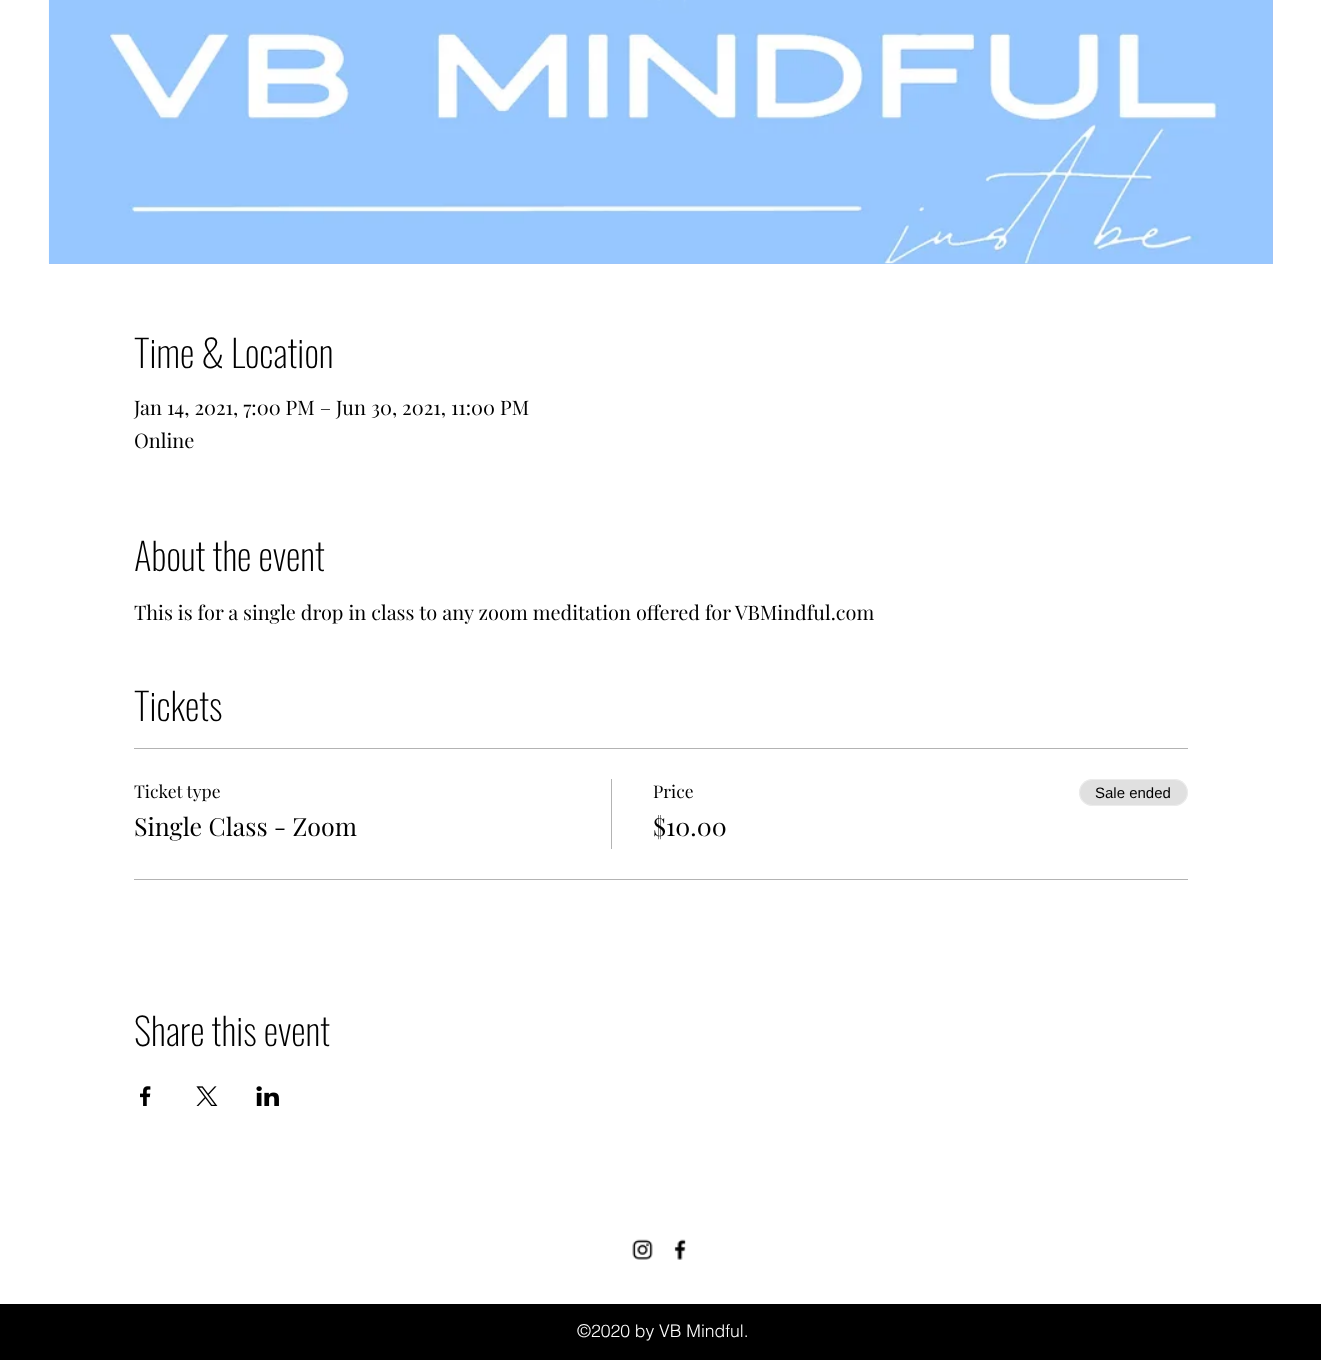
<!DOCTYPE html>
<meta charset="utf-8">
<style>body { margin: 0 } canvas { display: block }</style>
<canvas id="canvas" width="1321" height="1362"></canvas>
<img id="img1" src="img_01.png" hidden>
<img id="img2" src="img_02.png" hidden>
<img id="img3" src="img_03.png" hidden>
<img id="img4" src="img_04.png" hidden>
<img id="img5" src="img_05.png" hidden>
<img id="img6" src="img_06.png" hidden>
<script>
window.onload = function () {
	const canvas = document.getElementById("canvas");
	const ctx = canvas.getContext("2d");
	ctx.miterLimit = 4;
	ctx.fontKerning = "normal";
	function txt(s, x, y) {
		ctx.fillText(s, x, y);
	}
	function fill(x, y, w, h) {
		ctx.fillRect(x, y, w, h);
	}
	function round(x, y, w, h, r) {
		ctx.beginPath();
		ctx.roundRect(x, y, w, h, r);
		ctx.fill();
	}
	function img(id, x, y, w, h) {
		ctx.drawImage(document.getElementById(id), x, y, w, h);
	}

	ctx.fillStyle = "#FFFFFF";
	fill(0, 0, 1321, 1362);
	ctx.fillStyle = "#9DC4F9";
	fill(49, 0, 1224, 264);
	img("img1", 48, 0, 1224, 264);
	ctx.fillStyle = "#B3B3B3";
	fill(134, 748, 1054, 1);
	fill(134, 879, 1054, 1);
	fill(611, 779, 1, 70);
	ctx.fillStyle = "#E0E0E0";
	round(1079, 779, 109, 27, 13.5);
	ctx.beginPath();
	ctx.roundRect(1079.5, 779.5, 108, 26, 13);
	ctx.strokeStyle = "rgba(255, 255, 255, 0.4)";
	ctx.stroke();
	img("img2", 140, 1086, 11, 20);
	img("img3", 196, 1086, 22, 20);
	img("img4", 256, 1086, 23, 20);
	img("img5", 632, 1239, 21, 21);
	img("img6", 674, 1239, 12, 21);
	ctx.fillStyle = "#000000";
	fill(0, 1304, 1321, 56);
	ctx.font = "200 37.5px Oswald";
	txt("Time & Location", 134, 368);
	ctx.font = "20px Playfair Display";
	txt("Jan 14, 2021, 7:00 PM – Jun 30, 2021, 11:00 PM", 134, 415);
	txt("Online", 134, 448);
	ctx.font = "200 37.5px Oswald";
	txt("About the event", 134, 571);
	ctx.font = "20px Playfair Display";
	txt("This is for a single drop in class to any zoom meditation offered for VBMindful.com", 134, 620);
	ctx.font = "200 37.5px Oswald";
	txt("Tickets", 134, 721);
	ctx.font = "17.5px Playfair Display";
	txt("Ticket type", 134, 798);
	ctx.font = "25px Playfair Display";
	txt("Single Class - Zoom", 134, 836);
	ctx.font = "17.5px Playfair Display";
	txt("Price", 653, 798);
	ctx.font = "25px Playfair Display";
	txt("$10.00", 653, 836);
	ctx.font = "15px Liberation Sans";
	txt("Sale ended", 1095, 798);
	ctx.font = "200 37.5px Oswald";
	txt("Share this event", 134, 1046);
	ctx.font = "300 17.5px helvetica";
	ctx.fillStyle = "#FFFFFF";
	txt("©2020 by VB Mindful.", 577, 1337);
};
</script>
